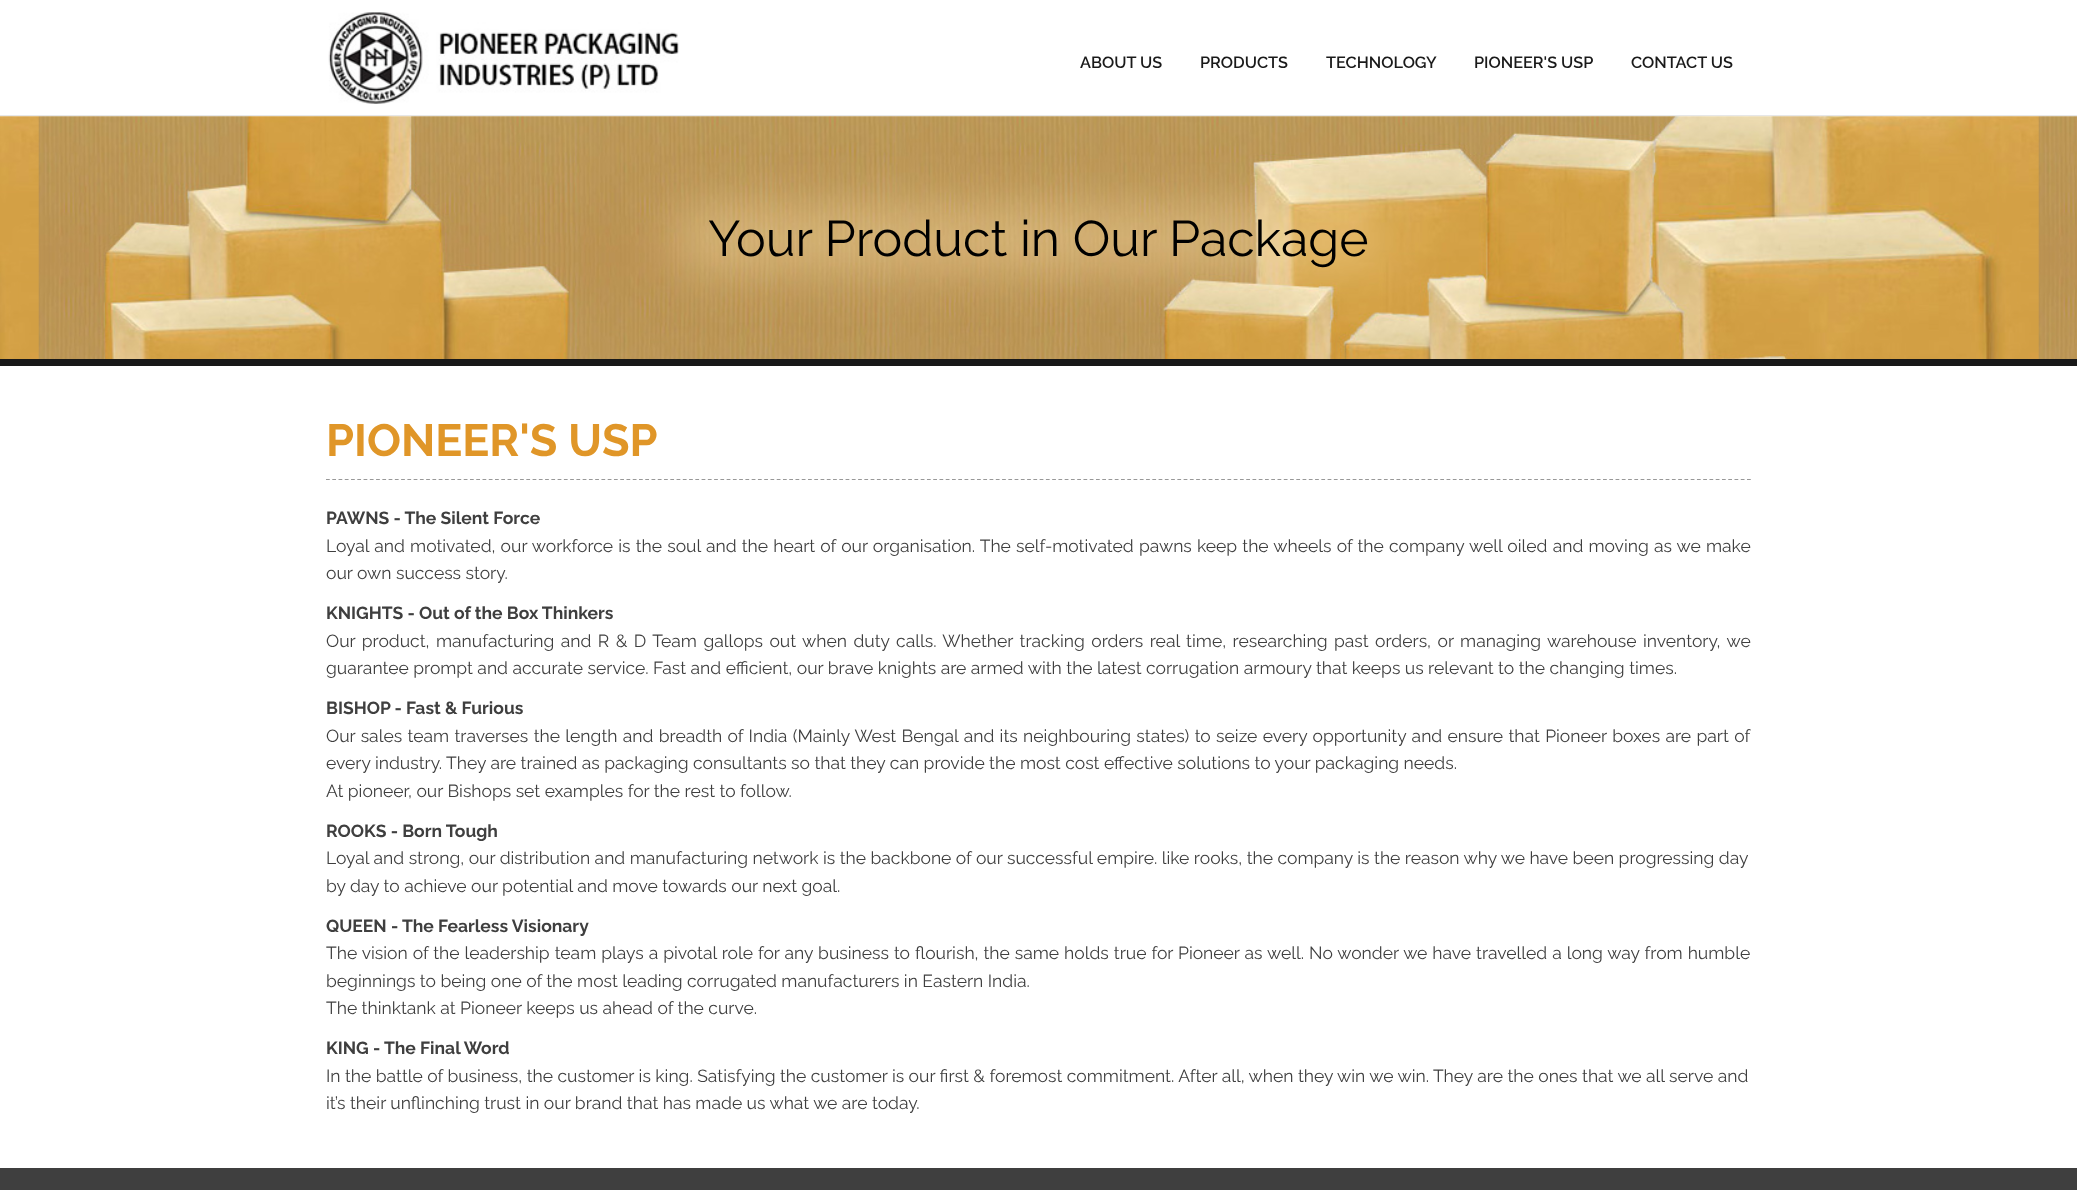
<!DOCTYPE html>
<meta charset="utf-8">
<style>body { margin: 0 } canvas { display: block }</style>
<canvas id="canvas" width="2077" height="1190"></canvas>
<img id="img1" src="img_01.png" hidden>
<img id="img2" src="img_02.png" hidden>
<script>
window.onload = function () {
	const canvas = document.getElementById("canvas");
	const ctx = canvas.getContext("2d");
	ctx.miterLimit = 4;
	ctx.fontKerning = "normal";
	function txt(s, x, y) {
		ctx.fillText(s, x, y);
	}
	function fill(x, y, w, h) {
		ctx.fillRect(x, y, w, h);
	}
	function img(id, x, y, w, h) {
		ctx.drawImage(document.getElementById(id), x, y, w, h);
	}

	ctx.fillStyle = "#FFFFFF";
	fill(0, 0, 2077, 1190);
	ctx.fillStyle = "#E7E7E7";
	fill(0, 115, 2077, 1);
	img("img1", 328, 12, 351, 92);
	img("img2", 0, 116, 2077, 243);
	ctx.fillStyle = "#181818";
	fill(0, 359, 2077, 7);
	ctx.beginPath();
	ctx.moveTo(326, 479.5);
	ctx.lineTo(1751, 479.5);
	ctx.strokeStyle = "#989898";
	ctx.lineWidth = 1.2;
	ctx.setLineDash([3.75, 2.51]);
	ctx.stroke();
	ctx.fillStyle = "#3F3F3F";
	fill(0, 1168, 2077, 22);
	ctx.font = "600 16.25px Raleway";
	ctx.fillStyle = "#1A1A1A";
	txt("ABOUT US", 1080, 68);
	txt("PRODUCTS", 1200, 68);
	txt("TECHNOLOGY", 1326, 68);
	txt("PIONEER'S USP", 1474, 68);
	txt("CONTACT US", 1631, 68);
	ctx.font = "50px Raleway";
	ctx.fillStyle = "#000000";
	txt("Your Product in Our Package", 708, 256);
	ctx.font = "bold 45px Raleway";
	ctx.fillStyle = "#E09628";
	txt("PIONEER'S USP", 326, 456);
	ctx.font = "bold 17.5px Raleway";
	ctx.fillStyle = "#3F3F3F";
	txt("PAWNS - The Silent Force", 326, 524);
	ctx.wordSpacing = "0.7px";
	ctx.font = "17.5px Raleway";
	txt("Loyal and motivated, our workforce is the soul and the heart of our organisation. The self-motivated pawns keep the wheels of the company well oiled and moving as we make", 326, 552);
	ctx.wordSpacing = "0px";
	txt("our own success story.", 326, 579);
	ctx.font = "bold 17.5px Raleway";
	txt("KNIGHTS - Out of the Box Thinkers", 326, 619);
	ctx.wordSpacing = "2px";
	ctx.font = "17.5px Raleway";
	txt("Our product, manufacturing and R & D Team gallops out when duty calls. Whether tracking orders real time, researching past orders, or managing warehouse inventory, we", 326, 647);
	ctx.wordSpacing = "0px";
	txt("guarantee prompt and accurate service. Fast and efficient, our brave knights are armed with the latest corrugation armoury that keeps us relevant to the changing times.", 326, 674);
	ctx.font = "bold 17.5px Raleway";
	txt("BISHOP - Fast & Furious", 326, 714);
	ctx.wordSpacing = "0.9px";
	ctx.font = "17.5px Raleway";
	txt("Our sales team traverses the length and breadth of India (Mainly West Bengal and its neighbouring states) to seize every opportunity and ensure that Pioneer boxes are part of", 326, 742);
	ctx.wordSpacing = "0px";
	txt("every industry. They are trained as packaging consultants so that they can provide the most cost effective solutions to your packaging needs.", 326, 769);
	txt("At pioneer, our Bishops set examples for the rest to follow.", 326, 797);
	ctx.font = "bold 17.5px Raleway";
	txt("ROOKS - Born Tough", 326, 837);
	ctx.font = "17.5px Raleway";
	txt("Loyal and strong, our distribution and manufacturing network is the backbone of our successful empire. like rooks, the company is the reason why we have been progressing day", 326, 864);
	txt("by day to achieve our potential and move towards our next goal.", 326, 892);
	ctx.font = "bold 17.5px Raleway";
	txt("QUEEN - The Fearless Visionary", 326, 932);
	ctx.wordSpacing = "0.5px";
	ctx.font = "17.5px Raleway";
	txt("The vision of the leadership team plays a pivotal role for any business to flourish, the same holds true for Pioneer as well. No wonder we have travelled a long way from humble", 326, 959);
	ctx.wordSpacing = "0px";
	txt("beginnings to being one of the most leading corrugated manufacturers in Eastern India.", 326, 987);
	txt("The thinktank at Pioneer keeps us ahead of the curve.", 326, 1014);
	ctx.font = "bold 17.5px Raleway";
	txt("KING - The Final Word", 326, 1054);
	ctx.font = "17.5px Raleway";
	txt("In the battle of business, the customer is king. Satisfying the customer is our first & foremost commitment. After all, when they win we win. They are the ones that we all serve and", 326, 1082);
	txt("it’s their unflinching trust in our brand that has made us what we are today.", 326, 1109);
};
</script>
